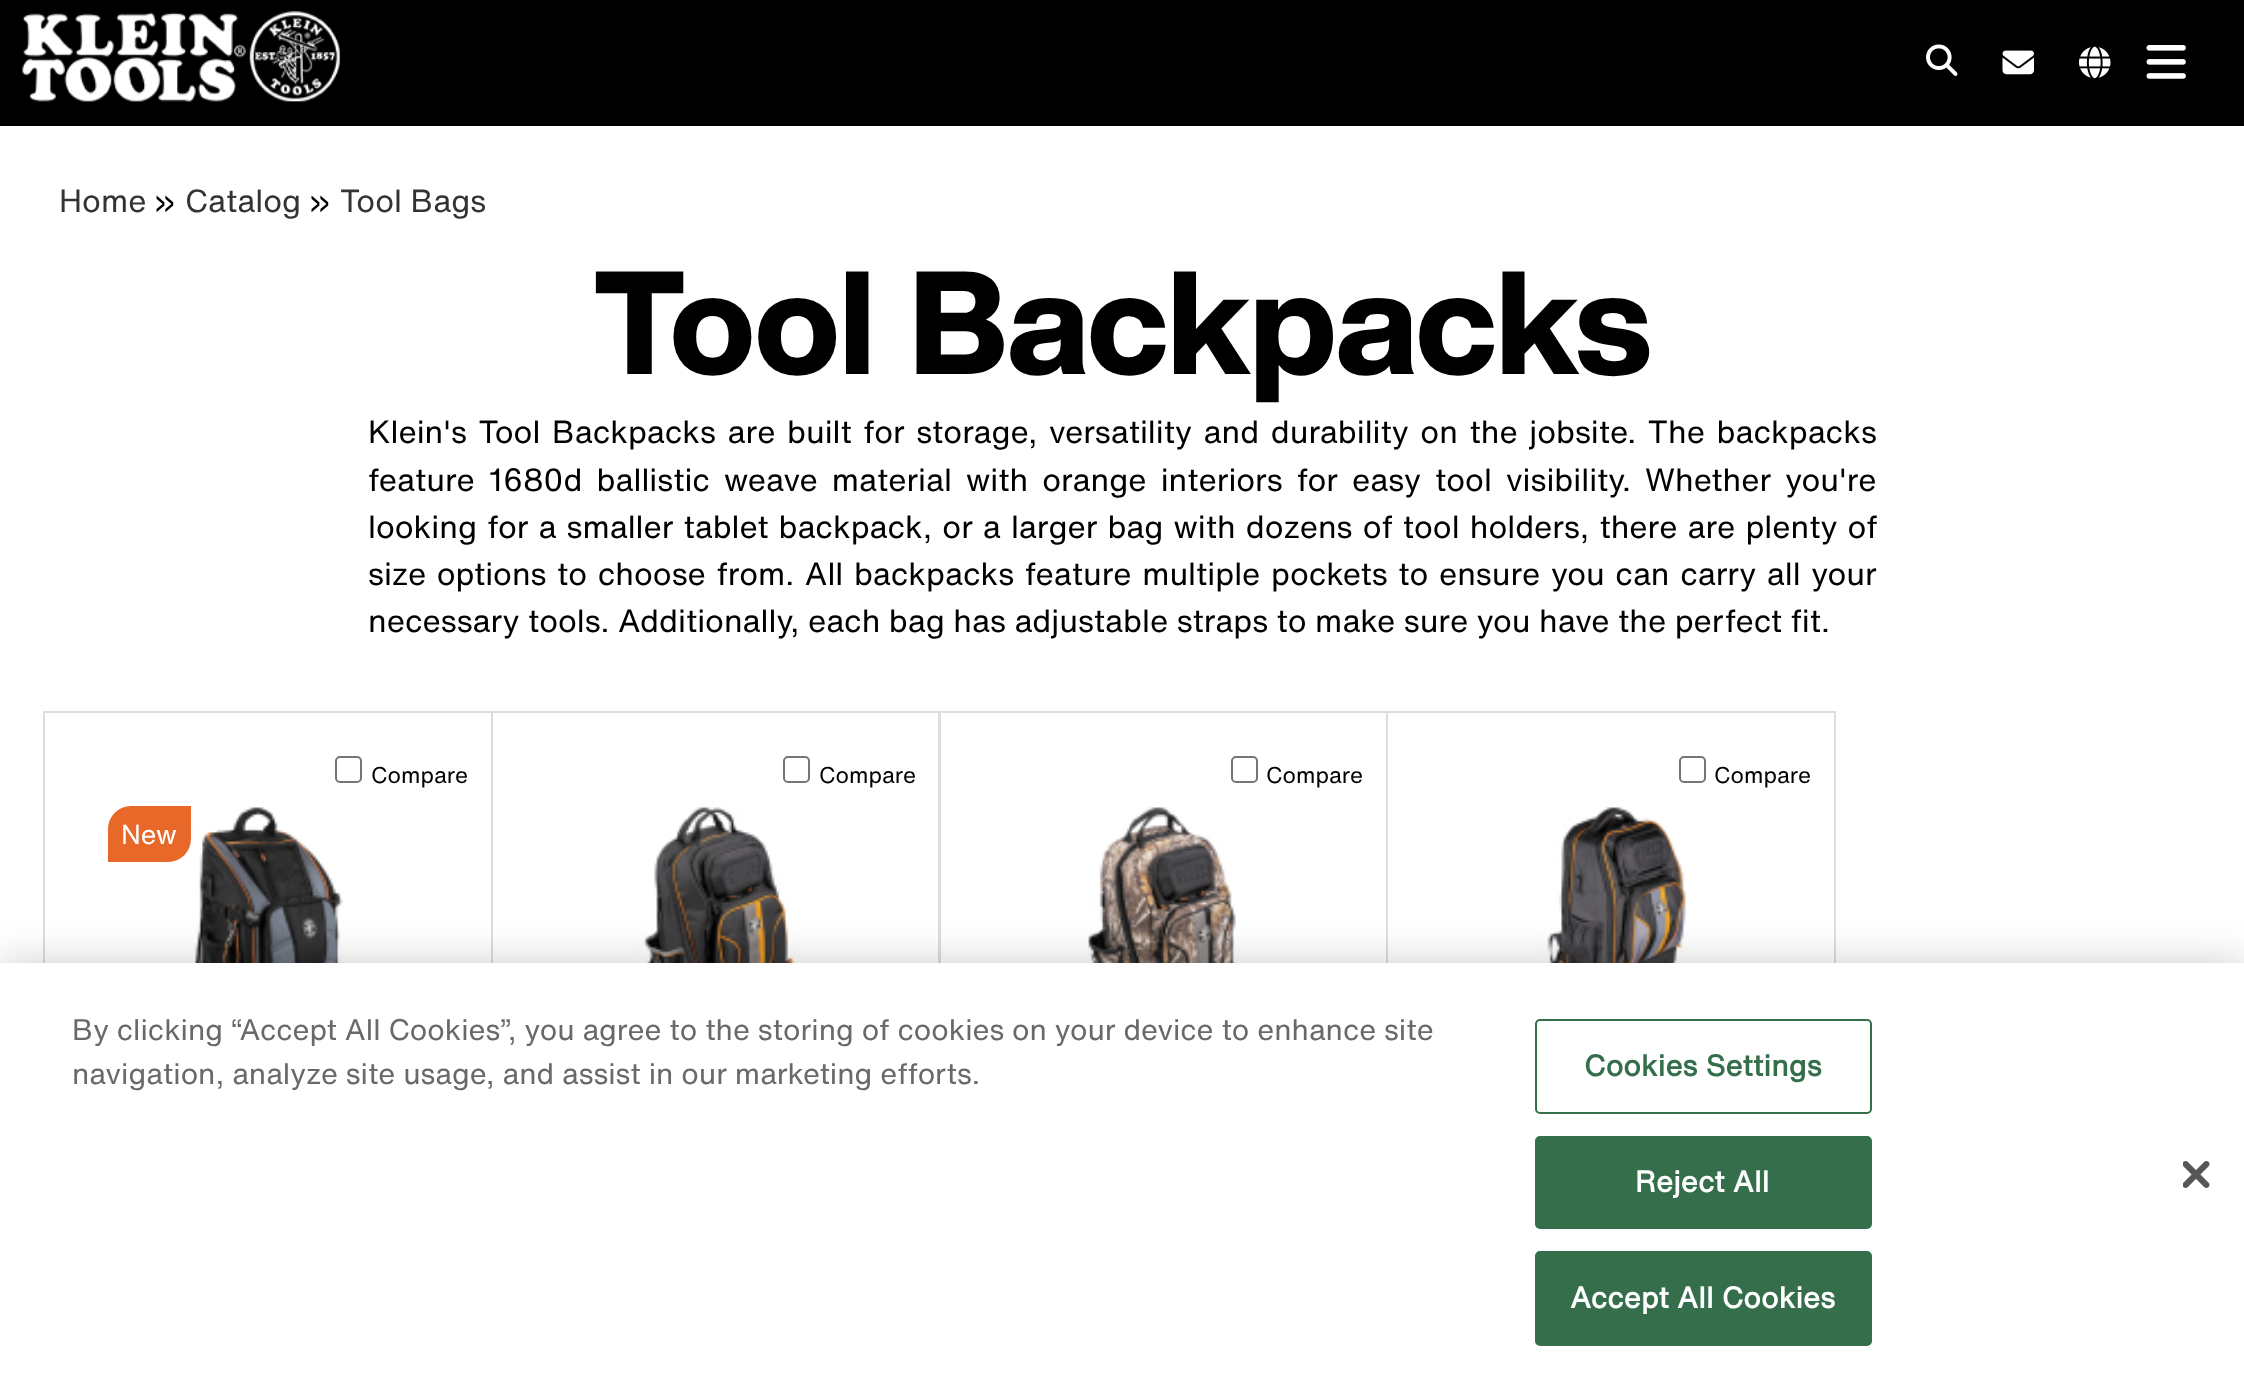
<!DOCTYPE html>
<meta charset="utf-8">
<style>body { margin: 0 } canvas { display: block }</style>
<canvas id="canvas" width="2244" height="1389"></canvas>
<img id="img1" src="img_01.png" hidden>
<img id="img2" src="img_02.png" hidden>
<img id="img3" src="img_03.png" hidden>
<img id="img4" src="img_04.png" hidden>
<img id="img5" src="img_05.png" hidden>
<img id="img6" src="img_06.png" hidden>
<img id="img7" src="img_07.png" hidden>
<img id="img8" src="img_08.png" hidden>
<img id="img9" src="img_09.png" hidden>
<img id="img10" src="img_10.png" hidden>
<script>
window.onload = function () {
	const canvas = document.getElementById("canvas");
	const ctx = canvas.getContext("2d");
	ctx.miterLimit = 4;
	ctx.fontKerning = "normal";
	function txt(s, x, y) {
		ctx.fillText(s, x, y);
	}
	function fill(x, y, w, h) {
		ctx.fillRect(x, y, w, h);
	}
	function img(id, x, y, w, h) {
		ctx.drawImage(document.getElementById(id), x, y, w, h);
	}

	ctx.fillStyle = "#FFFFFF";
	fill(0, 0, 2244, 1389);
	ctx.fillStyle = "#000000";
	fill(0, 0, 2244, 126);
	img("img1", 22, 11, 318, 91);
	img("img2", 1926, 44, 32, 32);
	img("img3", 2002, 50, 32, 25);
	img("img4", 2079, 46, 32, 33);
	img("img5", 2146, 45, 40, 34);
	ctx.strokeStyle = "#DDDDDD";
	ctx.lineWidth = 2;
	ctx.strokeRect(44, 712, 448, 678);
	ctx.beginPath();
	ctx.roundRect(336, 757, 25, 25, 4);
	ctx.strokeStyle = "#767676";
	ctx.stroke();
	ctx.fillStyle = "#E76829";
	ctx.beginPath();
	ctx.roundRect(108, 806, 83, 56, [23, 0, 23, 0]);
	ctx.fill();
	img("img6", 193, 807, 150, 156);
	ctx.strokeStyle = "#DDDDDD";
	ctx.strokeRect(492, 712, 448, 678);
	ctx.beginPath();
	ctx.roundRect(784, 757, 25, 25, 4);
	ctx.strokeStyle = "#767676";
	ctx.stroke();
	img("img7", 636, 807, 159, 156);
	ctx.strokeStyle = "#DDDDDD";
	ctx.strokeRect(939, 712, 448, 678);
	ctx.beginPath();
	ctx.roundRect(1232, 757, 25, 25, 4);
	ctx.strokeStyle = "#767676";
	ctx.stroke();
	img("img8", 1087, 807, 152, 156);
	ctx.strokeStyle = "#DDDDDD";
	ctx.strokeRect(1387, 712, 448, 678);
	ctx.beginPath();
	ctx.roundRect(1680, 757, 25, 25, 4);
	ctx.strokeStyle = "#767676";
	ctx.stroke();
	img("img9", 1536, 807, 150, 156);
	ctx.fillStyle = "rgba(0, 0, 0, 0.2)";
	ctx.filter = "blur(20px)";
	ctx.beginPath();
	ctx.rect(0, 963, 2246, 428);
	ctx.fill();
	ctx.filter = "none";
	ctx.fillStyle = "#FFFFFF";
	fill(0, 963, 2244, 426);
	ctx.beginPath();
	ctx.roundRect(1536, 1020, 335, 93, 4);
	ctx.strokeStyle = "#346E4A";
	ctx.stroke();
	ctx.fillStyle = "#346E4A";
	ctx.beginPath();
	ctx.roundRect(1536, 1137, 335, 91, 4);
	ctx.fill();
	ctx.stroke();
	ctx.beginPath();
	ctx.roundRect(1536, 1252, 335, 93, 4);
	ctx.fill();
	ctx.stroke();
	img("img10", 2183, 1161, 27, 27);
	ctx.font = "31.5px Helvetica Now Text";
	ctx.fillStyle = "#333333";
	txt("Home", 59, 212);
	ctx.fillStyle = "#000000";
	txt("»", 154, 212);
	ctx.fillStyle = "#333333";
	txt("Catalog", 185, 212);
	ctx.fillStyle = "#000000";
	txt("»", 309, 212);
	ctx.fillStyle = "#333333";
	txt("Tool Bags", 340, 212);
	ctx.font = "800 144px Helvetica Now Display";
	ctx.fillStyle = "#000000";
	txt("Tool Backpacks", 594, 374);
	ctx.wordSpacing = "3.1px";
	ctx.font = "31.5px Helvetica Now Text";
	txt("Klein's Tool Backpacks are built for storage, versatility and durability on the jobsite. The backpacks", 368, 443);
	ctx.wordSpacing = "5.6px";
	txt("feature 1680d ballistic weave material with orange interiors for easy tool visibility. Whether you're", 368, 491);
	ctx.wordSpacing = "1.6px";
	txt("looking for a smaller tablet backpack, or a larger bag with dozens of tool holders, there are plenty of", 368, 538);
	ctx.wordSpacing = "2.1px";
	txt("size options to choose from. All backpacks feature multiple pockets to ensure you can carry all your", 368, 585);
	ctx.wordSpacing = "0px";
	txt("necessary tools. Additionally, each bag has adjustable straps to make sure you have the perfect fit.", 368, 632);
	ctx.font = "22.5px Helvetica Now Text";
	txt("Compare", 371, 783);
	ctx.font = "27px Helvetica Now Text";
	ctx.fillStyle = "#FFFFFF";
	txt("New", 121, 844);
	ctx.font = "22.5px Helvetica Now Text";
	ctx.fillStyle = "#000000";
	txt("Compare", 819, 783);
	txt("Compare", 1266, 783);
	txt("Compare", 1714, 783);
	ctx.font = "29.25px Helvetica Now Text";
	ctx.fillStyle = "#696969";
	txt("By clicking “Accept All Cookies”, you agree to the storing of cookies on your device to enhance site", 72, 1040);
	txt("navigation, analyze site usage, and assist in our marketing efforts.", 72, 1084);
	ctx.letterSpacing = "0.25px";
	ctx.font = "bold 29.25px Helvetica Now Text";
	ctx.fillStyle = "#346E4A";
	txt("Cookies Settings", 1584, 1076);
	ctx.fillStyle = "#FFFFFF";
	txt("Reject All", 1635, 1192);
	txt("Accept All Cookies", 1570, 1308);
};
</script>
